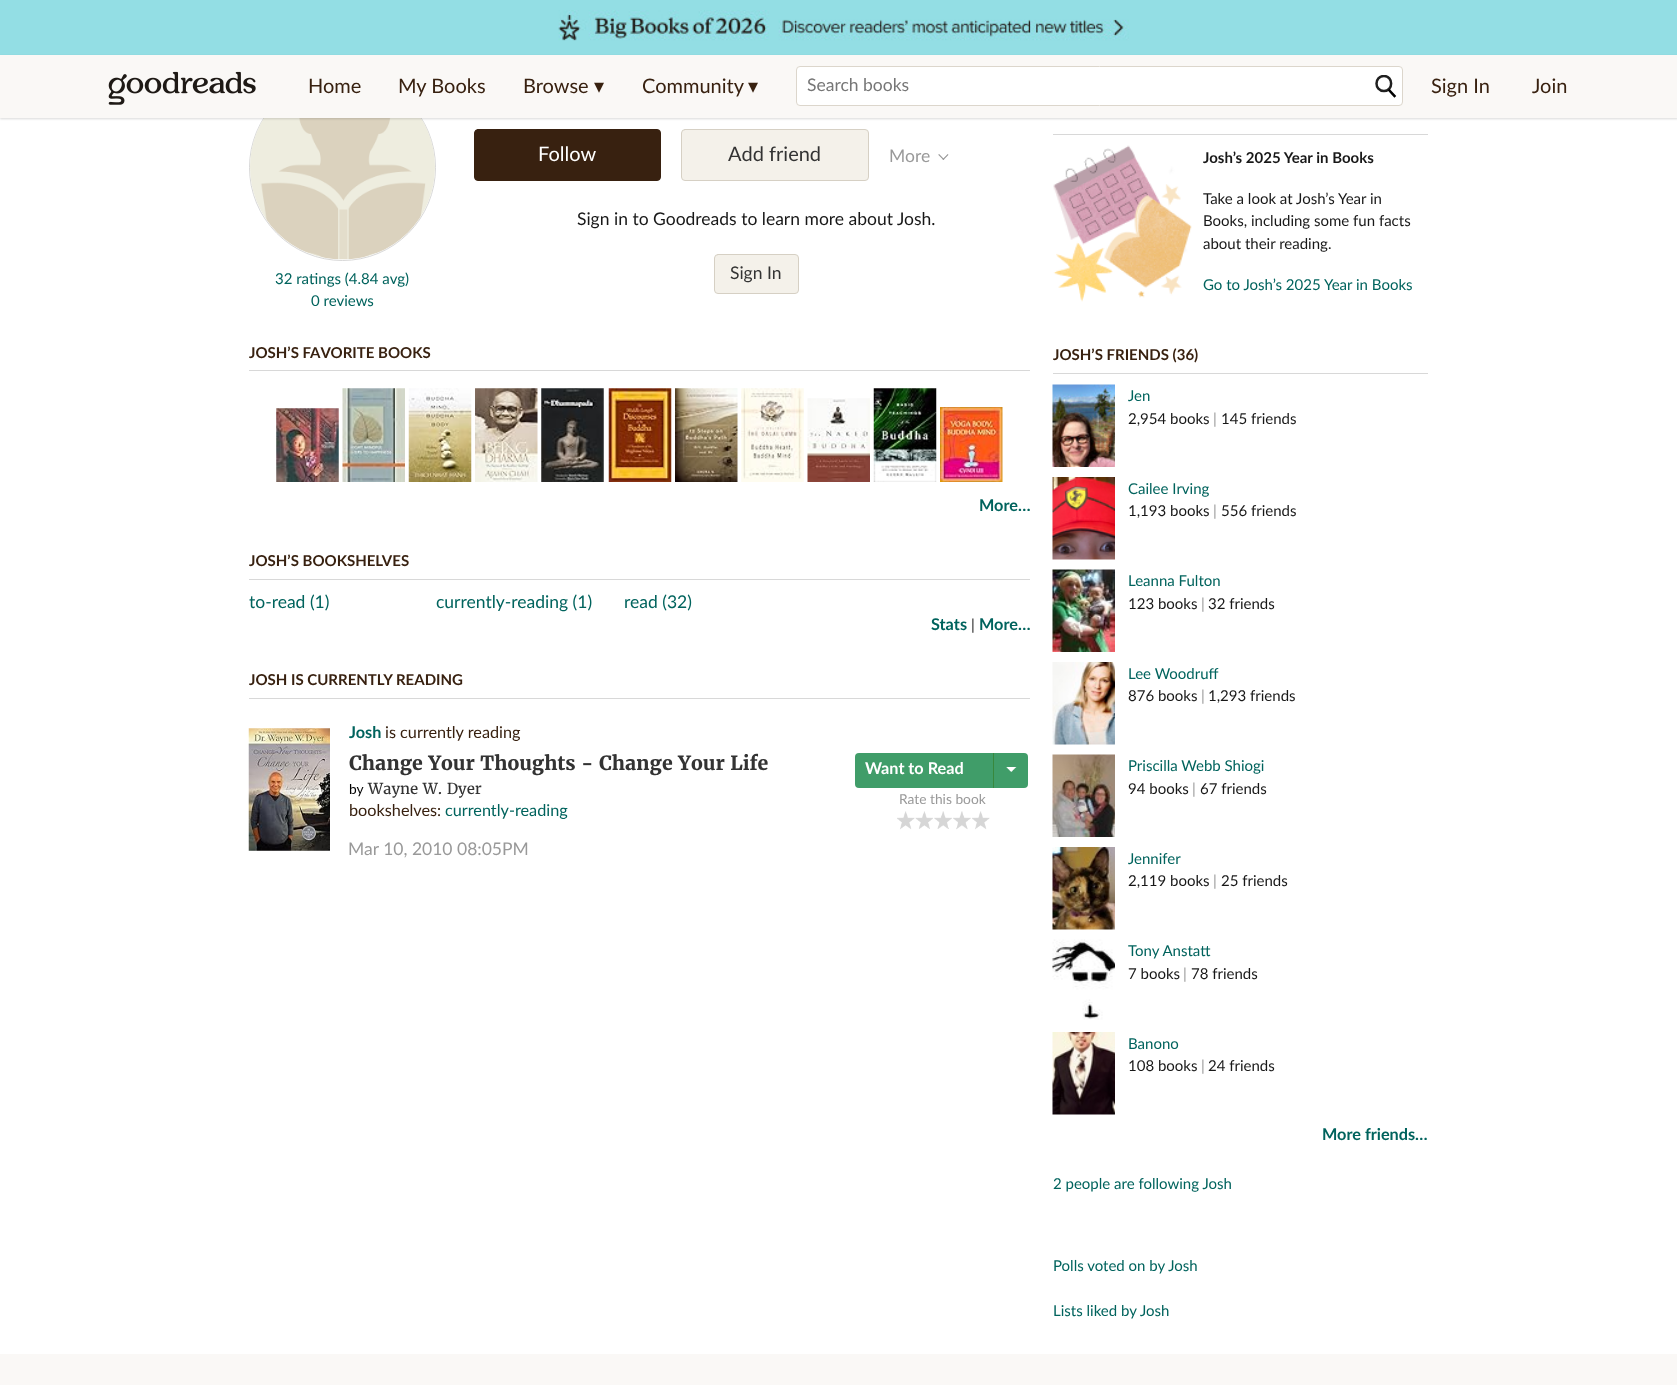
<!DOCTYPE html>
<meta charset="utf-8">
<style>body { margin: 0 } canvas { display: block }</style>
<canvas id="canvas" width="1677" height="1385"></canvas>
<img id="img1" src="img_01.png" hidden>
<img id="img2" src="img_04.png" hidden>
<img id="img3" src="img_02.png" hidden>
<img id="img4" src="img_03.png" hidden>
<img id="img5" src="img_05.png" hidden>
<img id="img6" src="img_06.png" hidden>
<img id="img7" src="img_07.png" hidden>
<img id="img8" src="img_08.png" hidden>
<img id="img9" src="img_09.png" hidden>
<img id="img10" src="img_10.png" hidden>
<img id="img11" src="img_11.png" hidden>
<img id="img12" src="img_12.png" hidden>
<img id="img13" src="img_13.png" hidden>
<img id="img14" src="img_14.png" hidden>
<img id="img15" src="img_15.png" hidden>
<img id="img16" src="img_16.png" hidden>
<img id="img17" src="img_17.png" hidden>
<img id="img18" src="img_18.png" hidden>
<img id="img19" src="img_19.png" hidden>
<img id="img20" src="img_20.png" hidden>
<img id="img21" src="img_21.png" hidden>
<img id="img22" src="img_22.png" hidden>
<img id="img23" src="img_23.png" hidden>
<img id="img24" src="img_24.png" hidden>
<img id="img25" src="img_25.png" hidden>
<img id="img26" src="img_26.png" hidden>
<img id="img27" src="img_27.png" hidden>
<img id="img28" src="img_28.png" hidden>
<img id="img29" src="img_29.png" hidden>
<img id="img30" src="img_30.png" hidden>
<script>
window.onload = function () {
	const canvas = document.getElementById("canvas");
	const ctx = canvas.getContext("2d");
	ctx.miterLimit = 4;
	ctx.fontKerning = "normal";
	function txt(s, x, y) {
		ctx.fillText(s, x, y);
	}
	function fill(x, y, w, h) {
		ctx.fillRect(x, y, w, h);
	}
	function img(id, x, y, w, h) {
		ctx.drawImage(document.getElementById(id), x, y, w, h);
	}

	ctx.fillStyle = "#FFFFFF";
	fill(0, 0, 1677, 1385);
	ctx.fillStyle = "#93DEE4";
	fill(0, 0, 1677, 55);
	img("img1", 558, 10, 571, 31);
	ctx.beginPath();
	ctx.arc(342.5, 167.5, 93, 0, Math.PI * 2);
	ctx.strokeStyle = "#D8D8D8";
	ctx.stroke();
	img("img2", 250, 118, 185, 142);
	ctx.fillStyle = "rgba(0, 0, 0, 0.15)";
	ctx.filter = "blur(1px)";
	ctx.beginPath();
	ctx.rect(0, 56, 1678, 63);
	ctx.fill();
	ctx.filter = "none";
	ctx.fillStyle = "#FAF8F6";
	fill(0, 55, 1677, 63);
	img("img3", 108, 71, 148, 34);
	ctx.fillStyle = "#FFFFFF";
	ctx.beginPath();
	ctx.roundRect(796.5, 66.5, 606, 39, 3.5);
	ctx.fill();
	ctx.strokeStyle = "#DCD6CC";
	ctx.stroke();
	ctx.save();
	ctx.beginPath();
	ctx.rect(1375, 75, 23, 24);
	ctx.clip();
	ctx.beginPath();
	ctx.moveTo(1384, 91);
	ctx.bezierCurveTo(1393.5, 91, 1393.5, 76, 1384, 76);
	ctx.bezierCurveTo(1374, 76, 1374, 91, 1384, 91);
	ctx.closePath();
	ctx.strokeStyle = "#202020";
	ctx.lineWidth = 2.5;
	ctx.stroke();
	ctx.restore();
	ctx.beginPath();
	ctx.moveTo(1389.5, 90.5);
	ctx.lineTo(1394.5, 96);
	ctx.strokeStyle = "#000000";
	ctx.lineWidth = 2.5;
	ctx.lineCap = "square";
	ctx.stroke();
	ctx.fillStyle = "#382110";
	ctx.beginPath();
	ctx.roundRect(474.5, 129.5, 186, 51, 3.5);
	ctx.fill();
	ctx.strokeStyle = "#382110";
	ctx.lineWidth = 1;
	ctx.stroke();
	ctx.fillStyle = "#F4F1EA";
	ctx.beginPath();
	ctx.roundRect(681.5, 129.5, 187, 51, 3.5);
	ctx.fill();
	ctx.strokeStyle = "#D6D0C4";
	ctx.stroke();
	img("img4", 938, 154, 11, 6);
	ctx.beginPath();
	ctx.roundRect(714.5, 254.5, 84, 39, 3.5);
	ctx.fill();
	ctx.stroke();
	ctx.fillStyle = "#D8D8D8";
	fill(249, 370, 781, 1);
	img("img5", 276, 408, 63, 74);
	img("img6", 342, 388, 63, 94);
	img("img7", 408, 388, 64, 94);
	img("img8", 475, 388, 63, 94);
	img("img9", 541, 388, 63, 94);
	img("img10", 608, 388, 64, 94);
	img("img11", 675, 388, 63, 94);
	img("img12", 741, 388, 63, 94);
	img("img13", 807, 398, 63, 84);
	img("img14", 873, 388, 64, 94);
	img("img15", 940, 407, 63, 75);
	fill(249, 579, 781, 1);
	fill(249, 698, 781, 1);
	img("img16", 248, 728, 82, 123);
	ctx.fillStyle = "#409D69";
	ctx.beginPath();
	ctx.roundRect(855, 753, 138, 35, [4, 0, 0, 4]);
	ctx.fill();
	ctx.beginPath();
	ctx.roundRect(993, 753, 35, 35, [0, 4, 4, 0]);
	ctx.fill();
	ctx.fillStyle = "#38883D";
	fill(993, 753, 1, 35);
	img("img17", 1006, 767, 11, 5);
	img("img18", 897, 811, 18, 19);
	img("img19", 915, 811, 18, 18);
	img("img20", 934, 811, 18, 18);
	img("img21", 953, 811, 18, 19);
	img("img18", 972, 811, 18, 19);
	ctx.fillStyle = "#D8D8D8";
	fill(1053, 134, 375, 1);
	img("img22", 1053, 145, 139, 157);
	fill(1053, 373, 375, 1);
	img("img23", 1052, 384, 63, 83);
	img("img24", 1052, 477, 63, 83);
	img("img25", 1052, 569, 63, 83);
	img("img26", 1052, 662, 63, 83);
	img("img27", 1052, 754, 63, 83);
	img("img28", 1052, 847, 63, 83);
	img("img29", 1052, 939, 63, 81);
	img("img30", 1052, 1032, 63, 83);
	ctx.fillStyle = "#FAF8F6";
	fill(0, 1354, 1677, 31);
	ctx.font = "20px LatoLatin";
	ctx.fillStyle = "#382110";
	txt("Home", 308, 93);
	txt("My Books", 398, 93);
	txt("Browse", 523, 93);
	ctx.font = "20px DejaVu Sans";
	txt("▾", 594, 93);
	ctx.font = "20px LatoLatin";
	txt("Community", 642, 93);
	ctx.font = "20px DejaVu Sans";
	txt("▾", 748, 93);
	ctx.font = "17.5px LatoLatin";
	ctx.fillStyle = "#767676";
	txt("Search books", 807, 91);
	ctx.font = "20px LatoLatin";
	ctx.fillStyle = "#382110";
	txt("Sign In", 1431, 93);
	txt("Join", 1532, 93);
	ctx.fillStyle = "#FFFFFF";
	txt("Follow", 538, 161);
	ctx.fillStyle = "#333333";
	txt("Add friend", 728, 161);
	ctx.font = "17.5px LatoLatin";
	ctx.fillStyle = "#999999";
	txt("More", 889, 162);
	ctx.fillStyle = "#181818";
	txt("Sign in to Goodreads to learn more about Josh.", 577, 225);
	ctx.fillStyle = "#333333";
	txt("Sign In", 730, 279);
	ctx.font = "15px LatoLatin";
	ctx.fillStyle = "#00635D";
	txt("32 ratings (4.84 avg)", 275, 284);
	txt("0 reviews", 311, 306);
	ctx.font = "bold 15px LatoLatin";
	ctx.fillStyle = "#382110";
	txt("JOSH’S FAVORITE BOOKS", 249, 358);
	ctx.font = "bold 16.25px LatoLatin";
	ctx.fillStyle = "#00635D";
	txt("More…", 979, 511);
	ctx.font = "bold 15px LatoLatin";
	ctx.fillStyle = "#382110";
	txt("JOSH’S BOOKSHELVES", 249, 566);
	ctx.font = "17.5px LatoLatin";
	ctx.fillStyle = "#00635D";
	txt("to-read (1)", 249, 608);
	txt("currently-reading (1)", 436, 608);
	txt("read (32)", 624, 608);
	ctx.font = "bold 16.25px LatoLatin";
	txt("Stats", 931, 630);
	ctx.font = "15px LatoLatin";
	ctx.fillStyle = "#181818";
	txt("|", 971, 630);
	ctx.font = "bold 16.25px LatoLatin";
	ctx.fillStyle = "#00635D";
	txt("More…", 979, 630);
	ctx.font = "bold 15px LatoLatin";
	ctx.fillStyle = "#382110";
	txt("JOSH IS CURRENTLY READING", 249, 685);
	ctx.font = "bold 16.25px LatoLatin";
	ctx.fillStyle = "#00635D";
	txt("Josh", 349, 738);
	ctx.font = "16.25px LatoLatin";
	ctx.fillStyle = "#382110";
	txt("is currently reading", 385, 738);
	ctx.font = "bold 19.5px Merriweather";
	ctx.fillStyle = "#333333";
	txt("Change Your Thoughts - Change Your Life", 349, 770);
	ctx.font = "13.75px LatoLatin";
	ctx.fillStyle = "#000000";
	txt("by", 349, 794);
	ctx.font = "15px Merriweather";
	ctx.fillStyle = "#333333";
	txt("Wayne W. Dyer", 368, 794);
	ctx.font = "16.25px LatoLatin";
	ctx.fillStyle = "#382110";
	txt("bookshelves:", 349, 816);
	ctx.fillStyle = "#00635D";
	txt("currently-reading", 445, 816);
	ctx.font = "bold 16.25px LatoLatin";
	ctx.fillStyle = "#FFFFFF";
	txt("Want to Read", 865, 774);
	ctx.font = "13.75px LatoLatin";
	ctx.fillStyle = "#999999";
	txt("Rate this book", 899, 804);
	ctx.font = "17.5px LatoLatin";
	txt("Mar 10, 2010 08:05PM", 348, 855);
	ctx.font = "bold 15px LatoLatin";
	ctx.fillStyle = "#181818";
	txt("Josh’s 2025 Year in Books", 1203, 163);
	ctx.font = "15px LatoLatin";
	txt("Take a look at Josh’s Year in", 1203, 204);
	txt("Books, including some fun facts", 1203, 226);
	txt("about their reading.", 1203, 249);
	ctx.fillStyle = "#00635D";
	txt("Go to Josh’s 2025 Year in Books", 1203, 290);
	ctx.font = "bold 15px LatoLatin";
	ctx.fillStyle = "#382110";
	txt("JOSH’S FRIENDS (36)", 1053, 360);
	ctx.font = "15px LatoLatin";
	ctx.fillStyle = "#00635D";
	txt("Jen", 1128, 401);
	ctx.fillStyle = "#181818";
	txt("2,954 books", 1128, 424);
	ctx.fillStyle = "#999999";
	txt("|", 1213, 424);
	ctx.fillStyle = "#181818";
	txt("145 friends", 1221, 424);
	ctx.fillStyle = "#00635D";
	txt("Cailee Irving", 1128, 494);
	ctx.fillStyle = "#181818";
	txt("1,193 books", 1128, 516);
	ctx.fillStyle = "#999999";
	txt("|", 1213, 516);
	ctx.fillStyle = "#181818";
	txt("556 friends", 1221, 516);
	ctx.fillStyle = "#00635D";
	txt("Leanna Fulton", 1128, 586);
	ctx.fillStyle = "#181818";
	txt("123 books", 1128, 609);
	ctx.fillStyle = "#999999";
	txt("|", 1201, 609);
	ctx.fillStyle = "#181818";
	txt("32 friends", 1208, 609);
	ctx.fillStyle = "#00635D";
	txt("Lee Woodruff", 1128, 679);
	ctx.fillStyle = "#181818";
	txt("876 books", 1128, 701);
	ctx.fillStyle = "#999999";
	txt("|", 1201, 701);
	ctx.fillStyle = "#181818";
	txt("1,293 friends", 1208, 701);
	ctx.fillStyle = "#00635D";
	txt("Priscilla Webb Shiogi", 1128, 771);
	ctx.fillStyle = "#181818";
	txt("94 books", 1128, 794);
	ctx.fillStyle = "#999999";
	txt("|", 1192, 794);
	ctx.fillStyle = "#181818";
	txt("67 friends", 1200, 794);
	ctx.fillStyle = "#00635D";
	txt("Jennifer", 1128, 864);
	ctx.fillStyle = "#181818";
	txt("2,119 books", 1128, 886);
	ctx.fillStyle = "#999999";
	txt("|", 1213, 886);
	ctx.fillStyle = "#181818";
	txt("25 friends", 1221, 886);
	ctx.fillStyle = "#00635D";
	txt("Tony Anstatt", 1128, 956);
	ctx.fillStyle = "#181818";
	txt("7 books", 1128, 979);
	ctx.fillStyle = "#999999";
	txt("|", 1183, 979);
	ctx.fillStyle = "#181818";
	txt("78 friends", 1191, 979);
	ctx.fillStyle = "#00635D";
	txt("Banono", 1128, 1049);
	ctx.fillStyle = "#181818";
	txt("108 books", 1128, 1071);
	ctx.fillStyle = "#999999";
	txt("|", 1201, 1071);
	ctx.fillStyle = "#181818";
	txt("24 friends", 1208, 1071);
	ctx.font = "bold 16.25px LatoLatin";
	ctx.fillStyle = "#00635D";
	txt("More friends…", 1322, 1140);
	ctx.font = "15px LatoLatin";
	txt("2 people are following Josh", 1053, 1189);
	txt("Polls voted on by Josh", 1053, 1271);
	txt("Lists liked by Josh", 1053, 1316);
};
</script>
